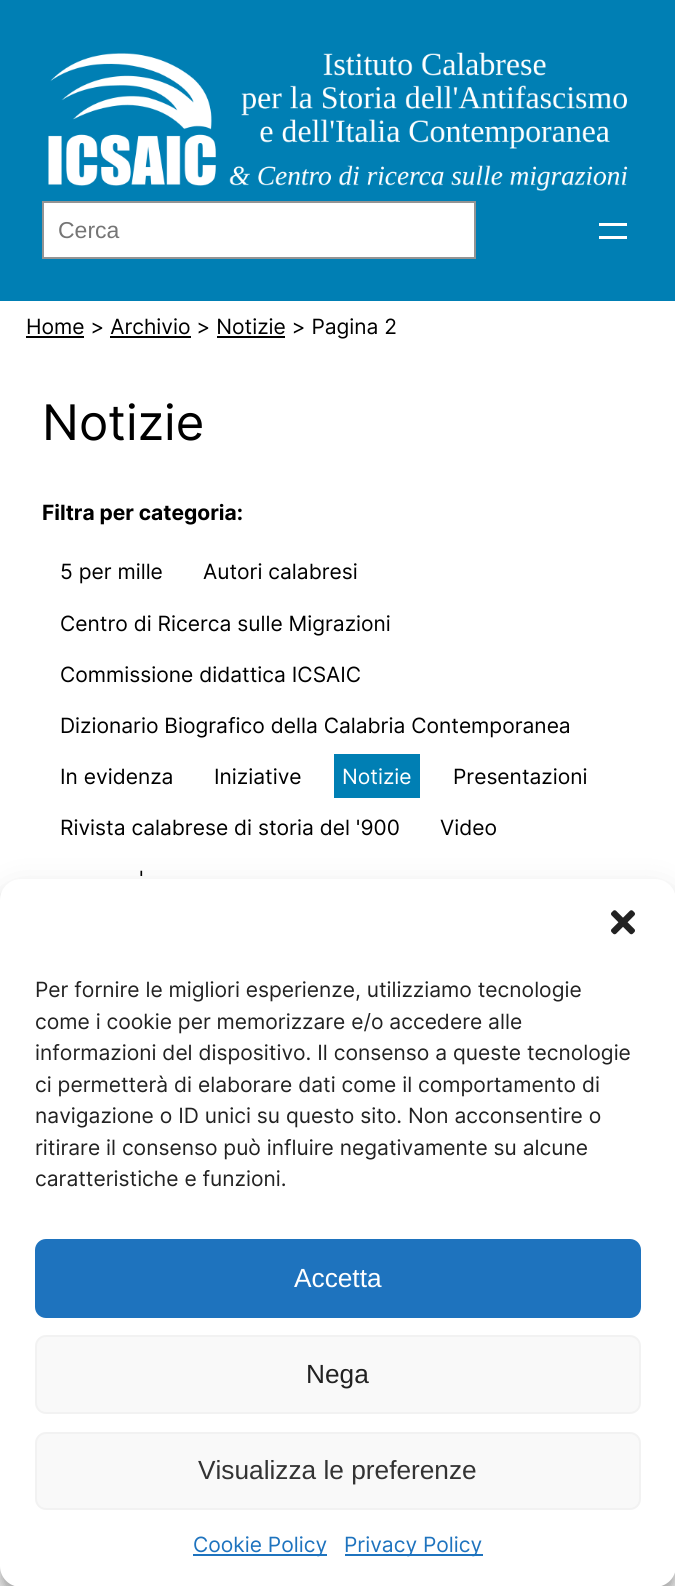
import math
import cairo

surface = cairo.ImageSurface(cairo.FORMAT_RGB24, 675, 1586)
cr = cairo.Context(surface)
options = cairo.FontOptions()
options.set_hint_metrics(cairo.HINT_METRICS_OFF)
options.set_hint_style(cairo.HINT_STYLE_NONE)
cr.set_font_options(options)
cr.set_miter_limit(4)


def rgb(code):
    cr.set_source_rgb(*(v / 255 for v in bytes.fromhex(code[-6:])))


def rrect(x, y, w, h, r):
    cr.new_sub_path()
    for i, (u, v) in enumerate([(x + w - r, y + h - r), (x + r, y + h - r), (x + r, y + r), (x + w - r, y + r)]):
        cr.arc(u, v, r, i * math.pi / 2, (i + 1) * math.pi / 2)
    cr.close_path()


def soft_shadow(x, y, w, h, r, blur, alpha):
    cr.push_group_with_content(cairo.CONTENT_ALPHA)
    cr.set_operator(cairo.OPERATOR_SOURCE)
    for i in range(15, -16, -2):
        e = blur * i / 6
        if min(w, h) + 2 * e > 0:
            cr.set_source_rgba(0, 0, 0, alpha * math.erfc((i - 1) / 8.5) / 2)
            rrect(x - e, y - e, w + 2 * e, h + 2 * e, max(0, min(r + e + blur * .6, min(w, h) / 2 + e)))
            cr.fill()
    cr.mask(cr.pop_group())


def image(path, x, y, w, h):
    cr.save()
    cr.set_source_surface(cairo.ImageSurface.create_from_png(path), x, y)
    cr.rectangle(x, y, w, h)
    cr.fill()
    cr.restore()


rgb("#ffffff")
cr.paint()
rgb("#007fb4")
cr.rectangle(0, 0, 675, 301)
cr.fill()
image("img/1.png", 48, 52, 580, 139)
rgb("#ffffff")
cr.rectangle(43, 202, 432, 56)
cr.fill_preserve()
rgb("#949494")
cr.stroke()
for x, y, w, h, color in [
    (599, 223, 28, 3, "#ffffff"),
    (599, 236, 28, 3, "#ffffff"),
    (26, 336, 58, 2, "#000000"),
    (110, 336, 81, 2, "#000000"),
    (217, 336, 68, 2, "#000000"),
    (334, 754, 86, 44, "#007fb4"),
]:
    rgb(color)
    cr.rectangle(x, y, w, h)
    cr.fill()
rgb("#000000")
soft_shadow(0, 889, 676, 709, 21, 5, 0.23)
soft_shadow(0, 896, 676, 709, 21, 17.5, 0.19)
rgb("#ffffff")
rrect(0, 879, 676, 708, 21)
cr.fill()
image("img/2.png", 611, 910, 24, 25)
rgb("#1e73be")
rrect(36, 1240, 604, 77, 10)
cr.fill_preserve()
cr.stroke()
rgb("#f9f9f9")
rrect(36, 1336, 604, 77, 10)
cr.fill_preserve()
rgb("#f2f2f2")
cr.stroke()
rgb("#f9f9f9")
rrect(36, 1433, 604, 76, 10)
cr.fill_preserve()
rgb("#f2f2f2")
cr.stroke()
rgb("#1e73be")
cr.rectangle(193, 1554, 134, 2)
cr.fill()
cr.rectangle(345, 1554, 138, 2)
cr.fill()
cr.select_font_face("Liberation Sans")
cr.set_font_size(23)
rgb("#757575")
cr.move_to(58, 238)
cr.show_text("Cerca")
cr.select_font_face("Inter")
cr.set_font_size(21)
rgb("#000000")
cr.move_to(26, 334)
cr.show_text("Home > Archivio > Notizie > Pagina 2")
cr.set_font_size(49)
cr.move_to(42, 440)
cr.show_text("Notizie")
cr.select_font_face("Inter", cairo.FONT_SLANT_NORMAL, cairo.FONT_WEIGHT_BOLD)
cr.set_font_size(21)
cr.move_to(42, 520)
cr.show_text("Filtra per categoria:")
cr.select_font_face("Inter")
for x, y, s in [
    (60, 579, "5 per mille"),
    (203, 579, "Autori calabresi"),
    (60, 631, "Centro di Ricerca sulle Migrazioni"),
    (60, 682, "Commissione didattica ICSAIC"),
    (60, 733, "Dizionario Biografico della Calabria Contemporanea"),
    (60, 784, "In evidenza"),
    (214, 784, "Iniziative"),
]:
    cr.move_to(x, y)
    cr.show_text(s)
rgb("#ffffff")
cr.move_to(342, 784)
cr.show_text("Notizie")
rgb("#000000")
for x, y, s in [
    (453, 784, "Presentazioni"),
    (60, 835, "Rivista calabrese di storia del '900"),
    (440, 835, "Video"),
    (139, 886, "'"),
]:
    cr.move_to(x, y)
    cr.show_text(s)
rgb("#222222")
for x, y, s in [
    (35, 997, "Per fornire le migliori esperienze, utilizziamo tecnologie"),
    (35, 1029, "come i cookie per memorizzare e/o accedere alle"),
    (35, 1060, "informazioni del dispositivo. Il consenso a queste tecnologie"),
    (35, 1092, "ci permetterà di elaborare dati come il comportamento di"),
    (35, 1123, "navigazione o ID unici su questo sito. Non acconsentire o"),
    (35, 1155, "ritirare il consenso può influire negativamente su alcune"),
    (35, 1186, "caratteristiche e funzioni."),
]:
    cr.move_to(x, y)
    cr.show_text(s)
cr.select_font_face("Liberation Sans")
cr.set_font_size(26.25)
rgb("#ffffff")
cr.move_to(294, 1287)
cr.show_text("Accetta")
rgb("#222222")
cr.move_to(306, 1383)
cr.show_text("Nega")
rgb("#333333")
cr.move_to(198, 1479)
cr.show_text("Visualizza le preferenze")
cr.select_font_face("Inter")
cr.set_font_size(21)
rgb("#1e73be")
cr.move_to(193, 1552)
cr.show_text("Cookie Policy")
cr.move_to(344, 1552)
cr.show_text("Privacy Policy")
surface.write_to_png("page.png")
